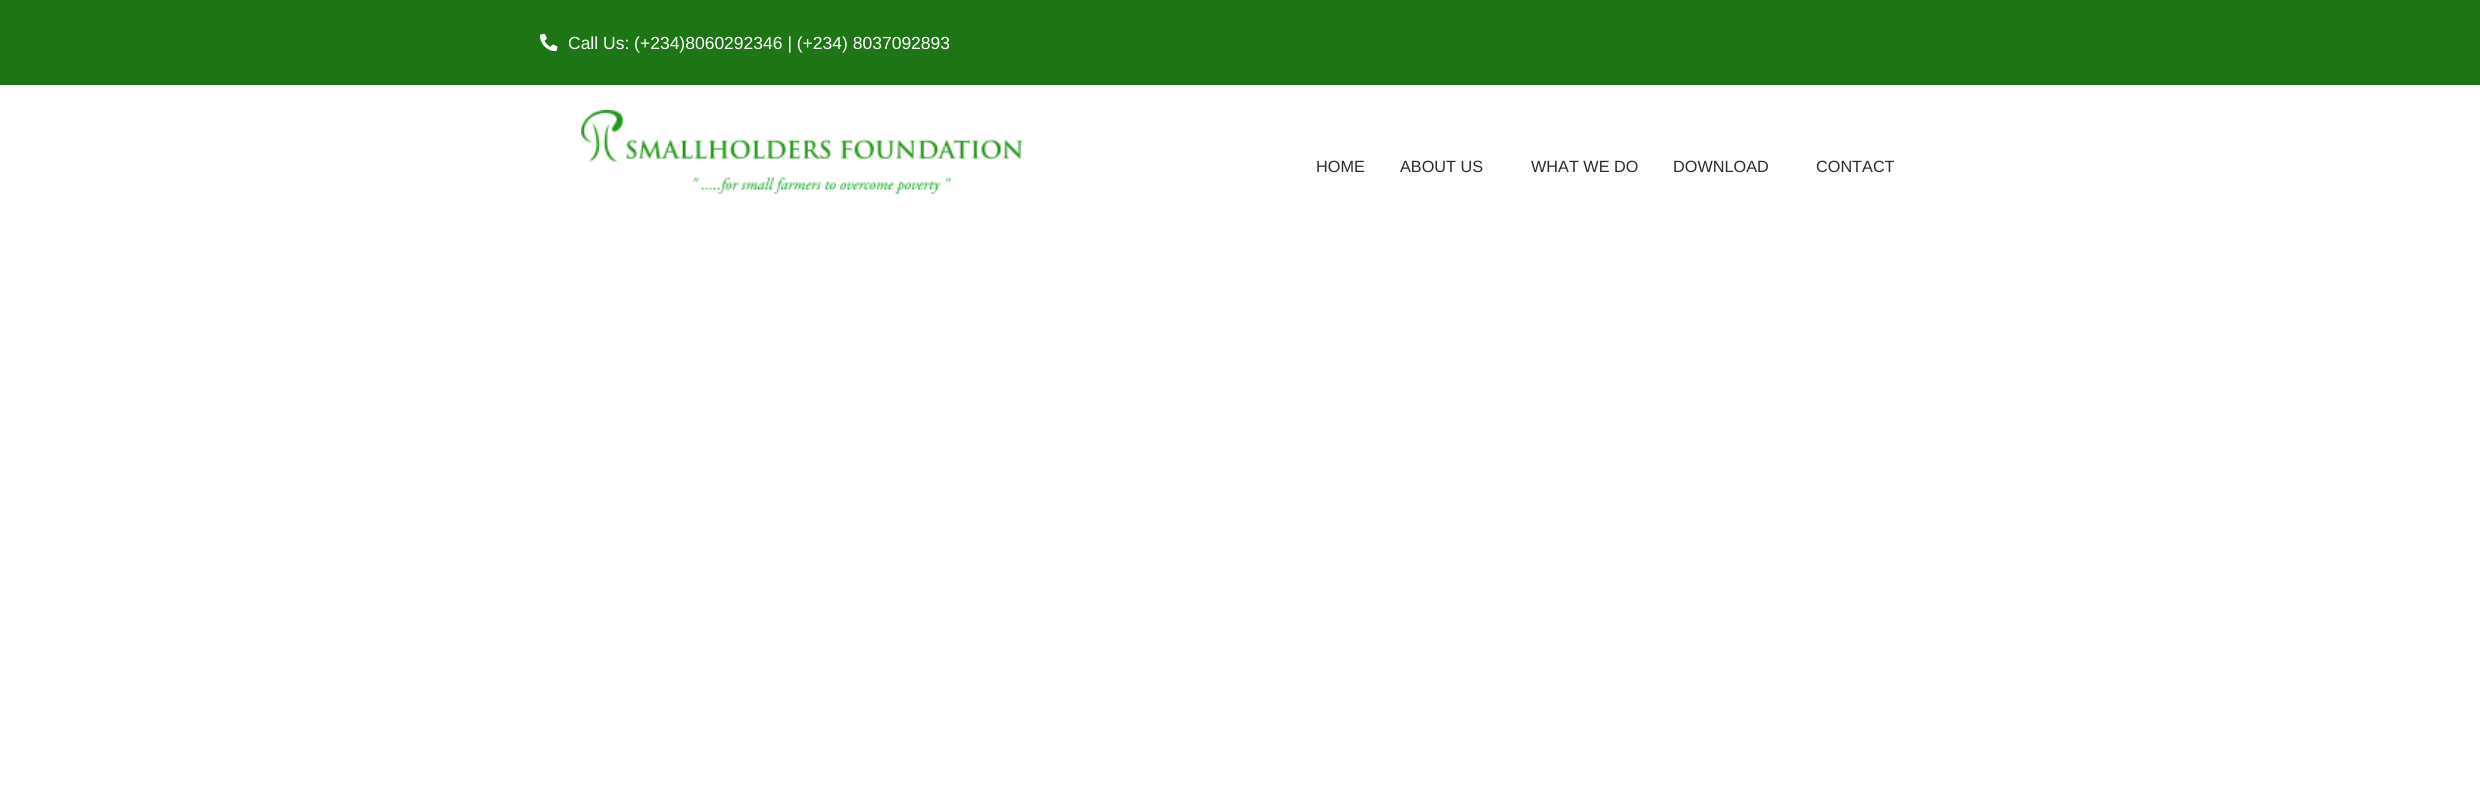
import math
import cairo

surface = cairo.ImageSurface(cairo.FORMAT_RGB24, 2480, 796)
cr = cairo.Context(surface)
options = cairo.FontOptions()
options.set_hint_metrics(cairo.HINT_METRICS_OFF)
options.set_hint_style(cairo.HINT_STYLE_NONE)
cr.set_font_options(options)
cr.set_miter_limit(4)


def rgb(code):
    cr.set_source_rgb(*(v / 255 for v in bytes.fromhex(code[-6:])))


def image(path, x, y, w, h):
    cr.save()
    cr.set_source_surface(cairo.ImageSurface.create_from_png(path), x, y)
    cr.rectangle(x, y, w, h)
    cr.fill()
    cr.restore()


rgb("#ffffff")
cr.paint()
rgb("#1e7516")
cr.rectangle(0, 0, 2480, 85)
cr.fill()
image("img/1.png", 540, 34, 18, 17)
image("img/2.png", 581, 110, 442, 84)
cr.select_font_face("Liberation Sans")
cr.set_font_size(17.5)
rgb("#ffffff")
cr.move_to(568, 49)
cr.show_text("Call Us: (+234)8060292346 | (+234) 8037092893")
cr.set_font_size(16.25)
rgb("#2b2b2b")
for x, y, s in [
    (1316, 172, "HOME"),
    (1400, 172, "ABOUT US"),
    (1531, 172, "WHAT WE DO"),
    (1673, 172, "DOWNLOAD"),
    (1816, 172, "CONTACT"),
]:
    cr.move_to(x, y)
    cr.show_text(s)
surface.write_to_png("page.png")
